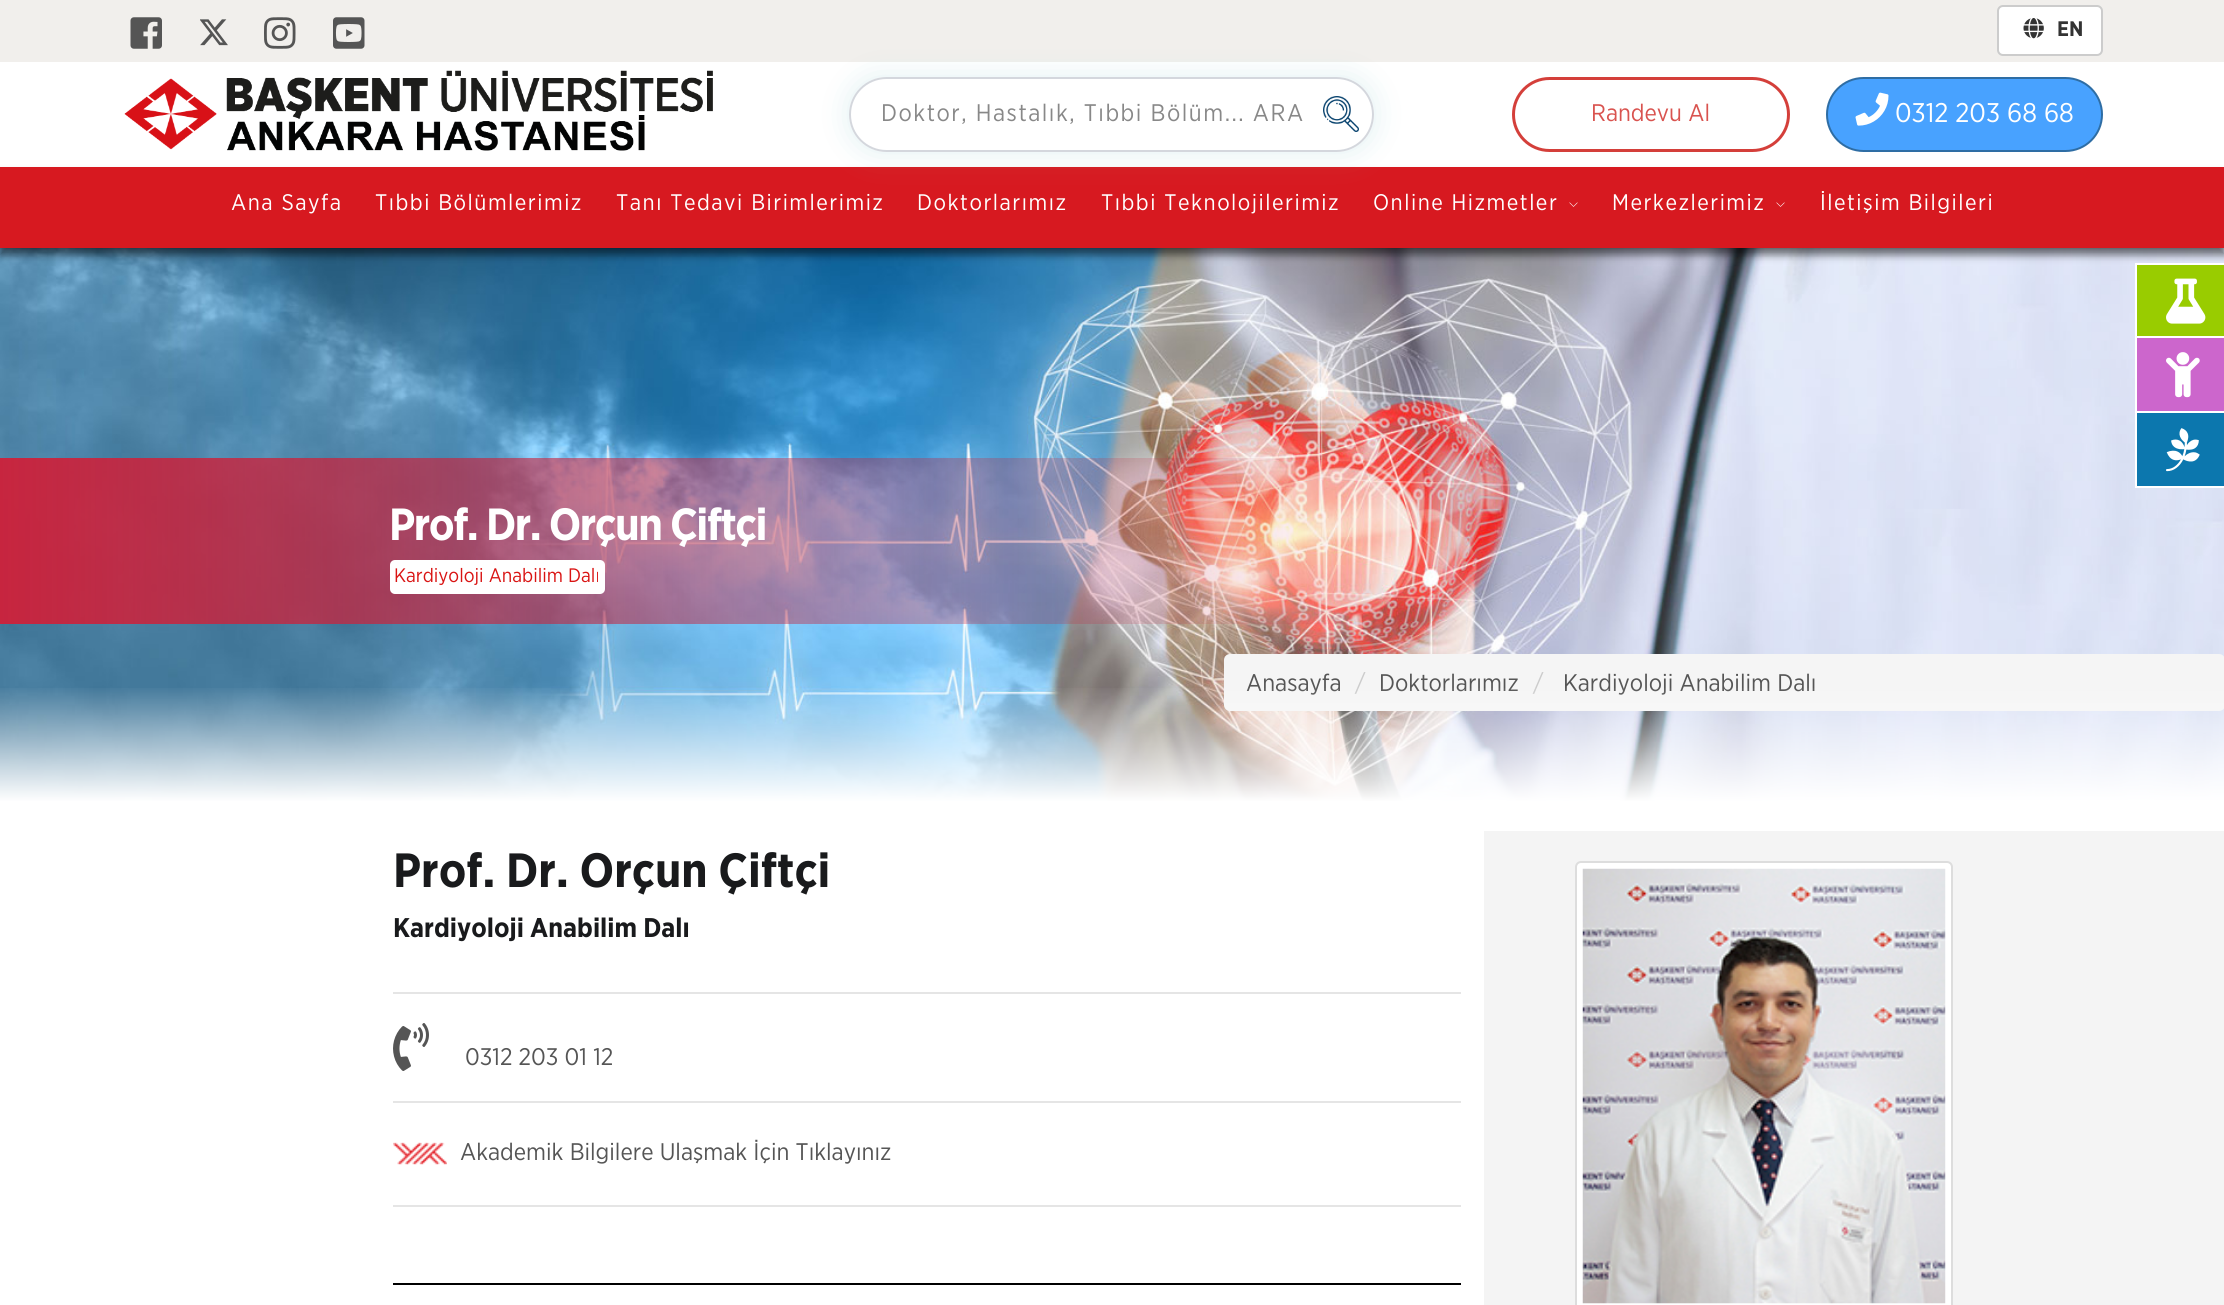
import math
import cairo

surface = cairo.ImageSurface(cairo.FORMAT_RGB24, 2224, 1305)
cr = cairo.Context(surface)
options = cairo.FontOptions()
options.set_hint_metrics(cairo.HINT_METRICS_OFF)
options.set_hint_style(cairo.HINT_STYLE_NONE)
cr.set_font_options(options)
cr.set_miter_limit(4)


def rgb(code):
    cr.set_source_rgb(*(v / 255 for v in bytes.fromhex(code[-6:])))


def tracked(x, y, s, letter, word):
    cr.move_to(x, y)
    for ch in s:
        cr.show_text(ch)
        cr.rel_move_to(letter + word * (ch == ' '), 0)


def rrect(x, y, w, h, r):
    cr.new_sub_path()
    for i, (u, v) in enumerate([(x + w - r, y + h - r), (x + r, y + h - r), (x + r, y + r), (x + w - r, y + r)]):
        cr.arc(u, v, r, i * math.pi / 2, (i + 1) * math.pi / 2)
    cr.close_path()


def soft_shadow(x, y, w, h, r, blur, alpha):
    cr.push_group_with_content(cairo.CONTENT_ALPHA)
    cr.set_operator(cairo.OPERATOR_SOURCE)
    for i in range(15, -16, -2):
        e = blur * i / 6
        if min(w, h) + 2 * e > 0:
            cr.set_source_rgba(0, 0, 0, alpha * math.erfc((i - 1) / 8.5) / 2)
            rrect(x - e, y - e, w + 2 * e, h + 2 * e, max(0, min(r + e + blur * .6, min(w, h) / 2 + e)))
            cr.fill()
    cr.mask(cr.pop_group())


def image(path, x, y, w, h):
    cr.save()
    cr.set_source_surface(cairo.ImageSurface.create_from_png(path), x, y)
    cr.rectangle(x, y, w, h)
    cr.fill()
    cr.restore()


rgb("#f4f4f4")
cr.paint()
image("img/13.png", 0, 248, 2224, 553)
rgb("#000000")
soft_shadow(-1, -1, 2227, 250, 0, 1, 0.1)
rgb("#d71920")
cr.rectangle(0, 167, 2224, 81)
cr.fill()
rgb("#f1efec")
cr.rectangle(0, 0, 2224, 62)
cr.fill()
image("img/1.png", 130, 17, 32, 32)
image("img/2.png", 200, 19, 28, 27)
image("img/3.png", 264, 17, 32, 32)
image("img/4.png", 333, 17, 32, 32)
rgb("#ffffff")
rrect(1998, 6, 104, 49, 5)
cr.fill_preserve()
rgb("#cccccc")
cr.stroke()
image("img/5.png", 2023, 18, 21, 21)
rgb("#ffffff")
cr.rectangle(0, 62, 2224, 105)
cr.fill()
image("img/6.png", 124, 70, 589, 81)
rgb("#89c5cc")
soft_shadow(849, 77, 525, 75, 37.5, 15, 0.25)
rgb("#ffffff")
rrect(849, 77, 525, 75, 37.5)
cr.fill()
image("img/7.png", 1323, 96, 36, 36)
rrect(850, 78, 523, 73, 36.5)
rgb("#d4d7dd")
cr.stroke()
rrect(1513.5, 78.5, 275, 72, 36)
rgb("#d43f3a")
cr.set_line_width(3)
cr.stroke()
rgb("#48a2ff")
rrect(1827, 78, 275, 73, 36.5)
cr.fill_preserve()
rgb("#2e6da4")
cr.set_line_width(2)
cr.stroke()
image("img/8.png", 1855, 92, 34, 34)
cr.save()
cr.set_fill_rule(cairo.FILL_RULE_EVEN_ODD)
cr.new_path()
cr.move_to(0, 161)
cr.line_to(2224, 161)
cr.line_to(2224, 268)
cr.line_to(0, 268)
cr.close_path()
cr.move_to(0, 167)
cr.line_to(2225, 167)
cr.line_to(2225, 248)
cr.line_to(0, 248)
cr.close_path()
cr.clip()
rgb("#000000")
soft_shadow(0, 174, 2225, 81, 0, 4, 0.53)
cr.restore()
image("img/9.png", 1569, 202, 9, 5)
image("img/9.png", 1776, 202, 9, 5)
for x, y, w, h, color in [
    (2137, 265, 87, 71, "#99cc00"),
    (2135, 263, 89, 2, "#ffffff"),
    (2135, 336, 89, 2, "#ffffff"),
    (2135, 263, 2, 75, "#ffffff"),
]:
    rgb(color)
    cr.rectangle(x, y, w, h)
    cr.fill()
image("img/10.png", 2166, 278, 40, 46)
for x, y, w, h, color in [
    (2137, 338, 87, 73, "#cc66cc"),
    (2135, 411, 89, 2, "#ffffff"),
    (2135, 338, 2, 75, "#ffffff"),
]:
    rgb(color)
    cr.rectangle(x, y, w, h)
    cr.fill()
image("img/11.png", 2166, 352, 34, 46)
for x, y, w, h, color in [
    (2137, 413, 87, 73, "#0c77ae"),
    (2135, 486, 89, 2, "#ffffff"),
    (2135, 413, 2, 75, "#ffffff"),
]:
    rgb(color)
    cr.rectangle(x, y, w, h)
    cr.fill()
image("img/12.png", 2166, 428, 34, 44)
rrect(390, 560, 215, 34, 5)
cr.fill()
rgb("#f5f5f5")
rrect(1224, 654, 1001, 57, 6)
cr.fill()
rgb("#ffffff")
cr.rectangle(0, 831, 1484, 474)
cr.fill()
rgb("#e5e5e5")
cr.rectangle(393, 992, 1068, 2)
cr.fill()
image("img/14.png", 393, 1023, 36, 48)
cr.rectangle(393, 1101, 1068, 2)
cr.fill()
image("img/15.png", 393, 1142, 54, 23)
cr.rectangle(393, 1205, 1068, 2)
cr.fill()
rgb("#000000")
cr.rectangle(393, 1283, 1068, 2)
cr.fill()
rgb("#ffffff")
rrect(1576, 862, 376, 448, 5)
cr.fill_preserve()
rgb("#dddddd")
cr.stroke()
image("img/16.png", 1582, 868, 364, 436)
cr.select_font_face("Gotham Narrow", cairo.FONT_SLANT_NORMAL, cairo.FONT_WEIGHT_BOLD)
cr.set_font_size(21)
rgb("#333333")
cr.move_to(2057, 36)
cr.show_text("EN")
cr.select_font_face("Gotham Narrow")
cr.set_font_size(24)
rgb("#888888")
tracked(881, 121, "Doktor, Hastalık, Tıbbi Bölüm... ARA", 1.5, 0)
rgb("#d9534f")
cr.move_to(1591, 121)
cr.show_text("Randevu Al")
cr.set_font_size(27)
rgb("#ffffff")
cr.move_to(1895, 122)
cr.show_text("0312 203 68 68")
cr.set_font_size(22.5)
for x, y, s in [
    (231, 210, "Ana Sayfa"),
    (375, 210, "Tıbbi Bölümlerimiz"),
    (616, 210, "Tanı Tedavi Birimlerimiz"),
    (917, 210, "Doktorlarımız"),
    (1101, 210, "Tıbbi Teknolojilerimiz"),
    (1373, 210, "Online Hizmetler"),
    (1612, 210, "Merkezlerimiz"),
    (1820, 210, "İletişim Bilgileri"),
]:
    tracked(x, y, s, 1.5, 0)
cr.select_font_face("Gotham Narrow", cairo.FONT_SLANT_NORMAL, cairo.FONT_WEIGHT_BOLD)
cr.set_font_size(45)
tracked(389, 540, "Prof. Dr. Orçun Çiftçi", -1.5, 0)
cr.select_font_face("Gotham Narrow")
cr.set_font_size(19.5)
rgb("#d91413")
cr.move_to(394, 582)
cr.show_text("Kardiyoloji Anabilim Dalı")
cr.set_font_size(24)
rgb("#555555")
cr.move_to(1246, 691)
cr.show_text("Anasayfa")
rgb("#cccccc")
cr.move_to(1355, 691)
cr.show_text("/")
rgb("#555555")
cr.move_to(1379, 691)
cr.show_text("Doktorlarımız")
rgb("#cccccc")
cr.move_to(1533, 691)
cr.show_text("/")
rgb("#555555")
cr.move_to(1563, 691)
cr.show_text("Kardiyoloji Anabilim Dalı")
gradient = cairo.LinearGradient(1112, 685, 1112, 831)
gradient.add_color_stop_rgba(0, 1, 1, 1, 0)
gradient.add_color_stop_rgba(0.8, 1, 1, 1, 1)
cr.set_source(gradient)
cr.rectangle(0, 688, 2224, 143)
cr.fill()
cr.select_font_face("Gotham Narrow", cairo.FONT_SLANT_NORMAL, cairo.FONT_WEIGHT_BOLD)
cr.set_font_size(48)
rgb("#191a1c")
cr.move_to(393, 887)
cr.show_text("Prof. Dr. Orçun Çiftçi")
cr.set_font_size(27)
cr.move_to(393, 937)
cr.show_text("Kardiyoloji Anabilim Dalı")
cr.select_font_face("Gotham Narrow")
cr.set_font_size(24)
rgb("#555555")
cr.move_to(465, 1065)
cr.show_text("0312 203 01 12")
cr.move_to(460, 1160)
cr.show_text("Akademik Bilgilere Ulaşmak İçin Tıklayınız")
surface.write_to_png("page.png")
